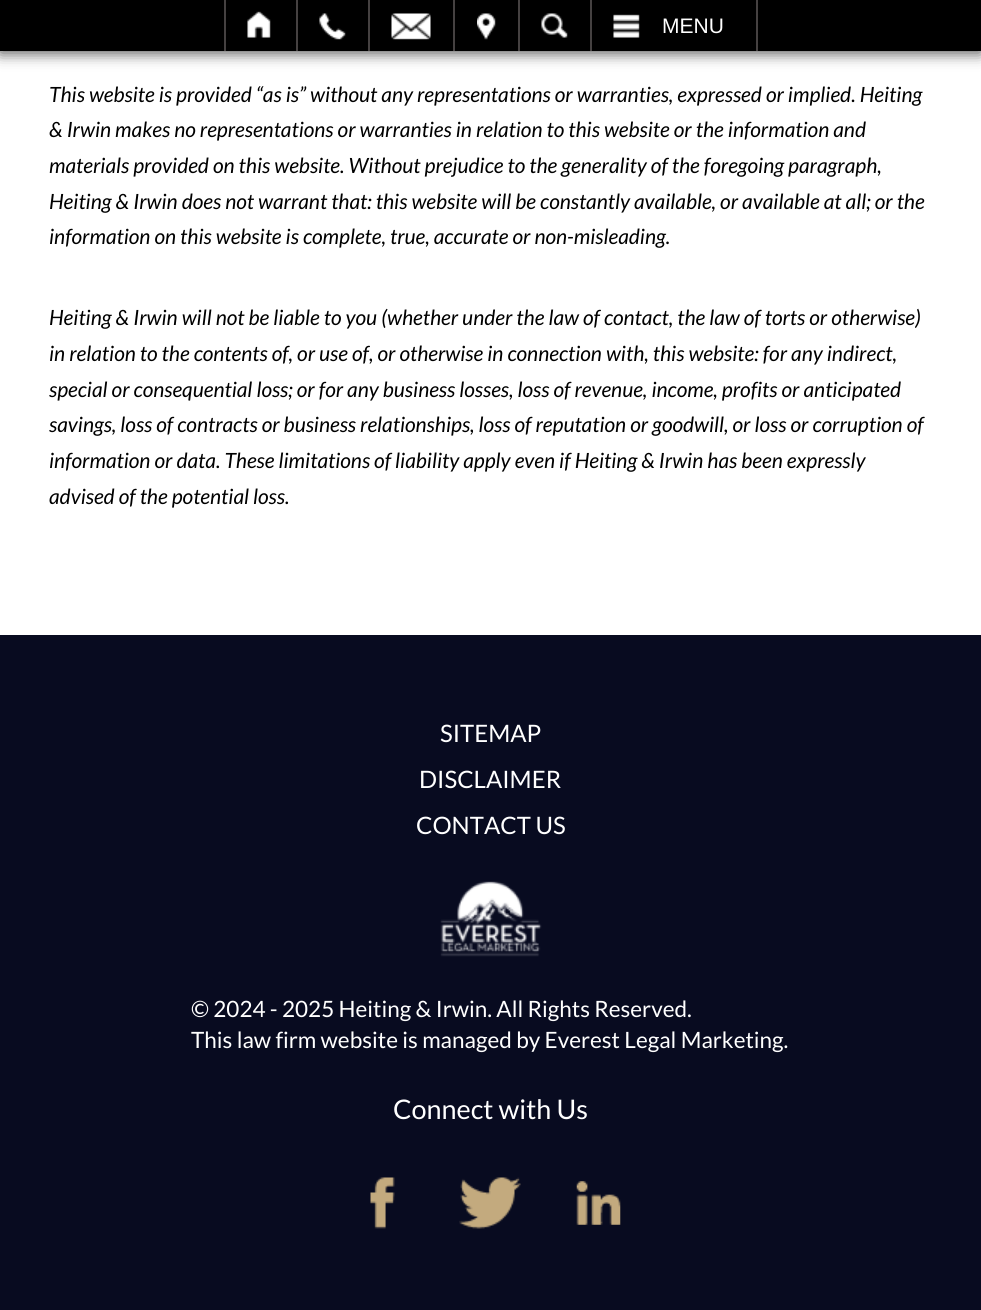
import math
import cairo

surface = cairo.ImageSurface(cairo.FORMAT_RGB24, 981, 1310)
cr = cairo.Context(surface)
options = cairo.FontOptions()
options.set_hint_metrics(cairo.HINT_METRICS_OFF)
options.set_hint_style(cairo.HINT_STYLE_NONE)
cr.set_font_options(options)
cr.set_miter_limit(4)


def rgb(code):
    cr.set_source_rgb(*(v / 255 for v in bytes.fromhex(code[-6:])))


def rrect(x, y, w, h, r):
    cr.new_sub_path()
    for i, (u, v) in enumerate([(x + w - r, y + h - r), (x + r, y + h - r), (x + r, y + r), (x + w - r, y + r)]):
        cr.arc(u, v, r, i * math.pi / 2, (i + 1) * math.pi / 2)
    cr.close_path()


def soft_shadow(x, y, w, h, r, blur, alpha):
    cr.push_group_with_content(cairo.CONTENT_ALPHA)
    cr.set_operator(cairo.OPERATOR_SOURCE)
    for i in range(15, -16, -2):
        e = blur * i / 6
        if min(w, h) + 2 * e > 0:
            cr.set_source_rgba(0, 0, 0, alpha * math.erfc((i - 1) / 8.5) / 2)
            rrect(x - e, y - e, w + 2 * e, h + 2 * e, max(0, min(r + e + blur * .6, min(w, h) / 2 + e)))
            cr.fill()
    cr.mask(cr.pop_group())


def image(path, x, y, w, h):
    cr.save()
    cr.set_source_surface(cairo.ImageSurface.create_from_png(path), x, y)
    cr.rectangle(x, y, w, h)
    cr.fill()
    cr.restore()


rgb("#ffffff")
cr.paint()
rgb("#000000")
soft_shadow(0, 2, 981, 51, 0, 7.5, 0.7)
for x, y, w, h, color in [
    (0, 0, 981, 51, "#000000"),
    (296, 0, 2, 51, "#454141"),
    (224, 0, 2, 51, "#454141"),
]:
    rgb(color)
    cr.rectangle(x, y, w, h)
    cr.fill()
image("img/1.png", 247, 11, 24, 27)
cr.rectangle(368, 0, 2, 51)
cr.fill()
image("img/2.png", 319, 13, 27, 27)
cr.rectangle(453, 0, 2, 51)
cr.fill()
image("img/3.png", 391, 13, 40, 27)
cr.rectangle(518, 0, 2, 51)
cr.fill()
image("img/4.png", 477, 13, 19, 27)
cr.rectangle(590, 0, 2, 51)
cr.fill()
image("img/5.png", 541, 13, 27, 25)
cr.rectangle(756, 0, 2, 51)
cr.fill()
image("img/6.png", 613, 14, 27, 24)
rgb("#080b20")
cr.rectangle(0, 635, 981, 675)
cr.fill()
image("img/7.png", 440, 881, 102, 76)
image("img/8.png", 370, 1177, 25, 52)
image("img/9.png", 459, 1177, 62, 52)
image("img/10.png", 576, 1181, 45, 44)
cr.select_font_face("Liberation Sans")
cr.set_font_size(21)
rgb("#ffffff")
cr.move_to(662, 33)
cr.show_text("MENU")
cr.select_font_face("Lato", cairo.FONT_SLANT_ITALIC)
rgb("#000000")
for x, y, s in [
    (49, 102, "This website is provided “as is” without any representations or warranties, expressed or implied. Heiting"),
    (49, 137, "& Irwin makes no representations or warranties in relation to this website or the information and"),
    (49, 173, "materials provided on this website. Without prejudice to the generality of the foregoing paragraph,"),
    (49, 209, "Heiting & Irwin does not warrant that: this website will be constantly available, or available at all; or the"),
    (49, 244, "information on this website is complete, true, accurate or non-misleading."),
    (49, 325, "Heiting & Irwin will not be liable to you (whether under the law of contact, the law of torts or otherwise)"),
    (49, 361, "in relation to the contents of, or use of, or otherwise in connection with, this website: for any indirect,"),
    (49, 397, "special or consequential loss; or for any business losses, loss of revenue, income, profits or anticipated"),
    (49, 432, "savings, loss of contracts or business relationships, loss of reputation or goodwill, or loss or corruption of"),
    (49, 468, "information or data. These limitations of liability apply even if Heiting & Irwin has been expressly"),
    (49, 504, "advised of the potential loss."),
]:
    cr.move_to(x, y)
    cr.show_text(s)
cr.select_font_face("Lato")
cr.set_font_size(24)
rgb("#ffffff")
for x, y, s in [
    (440, 742, "SITEMAP"),
    (419, 788, "DISCLAIMER"),
    (416, 834, "CONTACT US"),
]:
    cr.move_to(x, y)
    cr.show_text(s)
cr.set_font_size(22.5)
cr.move_to(191, 1017)
cr.show_text("© 2024 - 2025 Heiting & Irwin. All Rights Reserved.")
cr.move_to(191, 1048)
cr.show_text("This law firm website is managed by Everest Legal Marketing.")
cr.set_font_size(27)
cr.move_to(393, 1119)
cr.show_text("Connect with Us")
surface.write_to_png("page.png")
